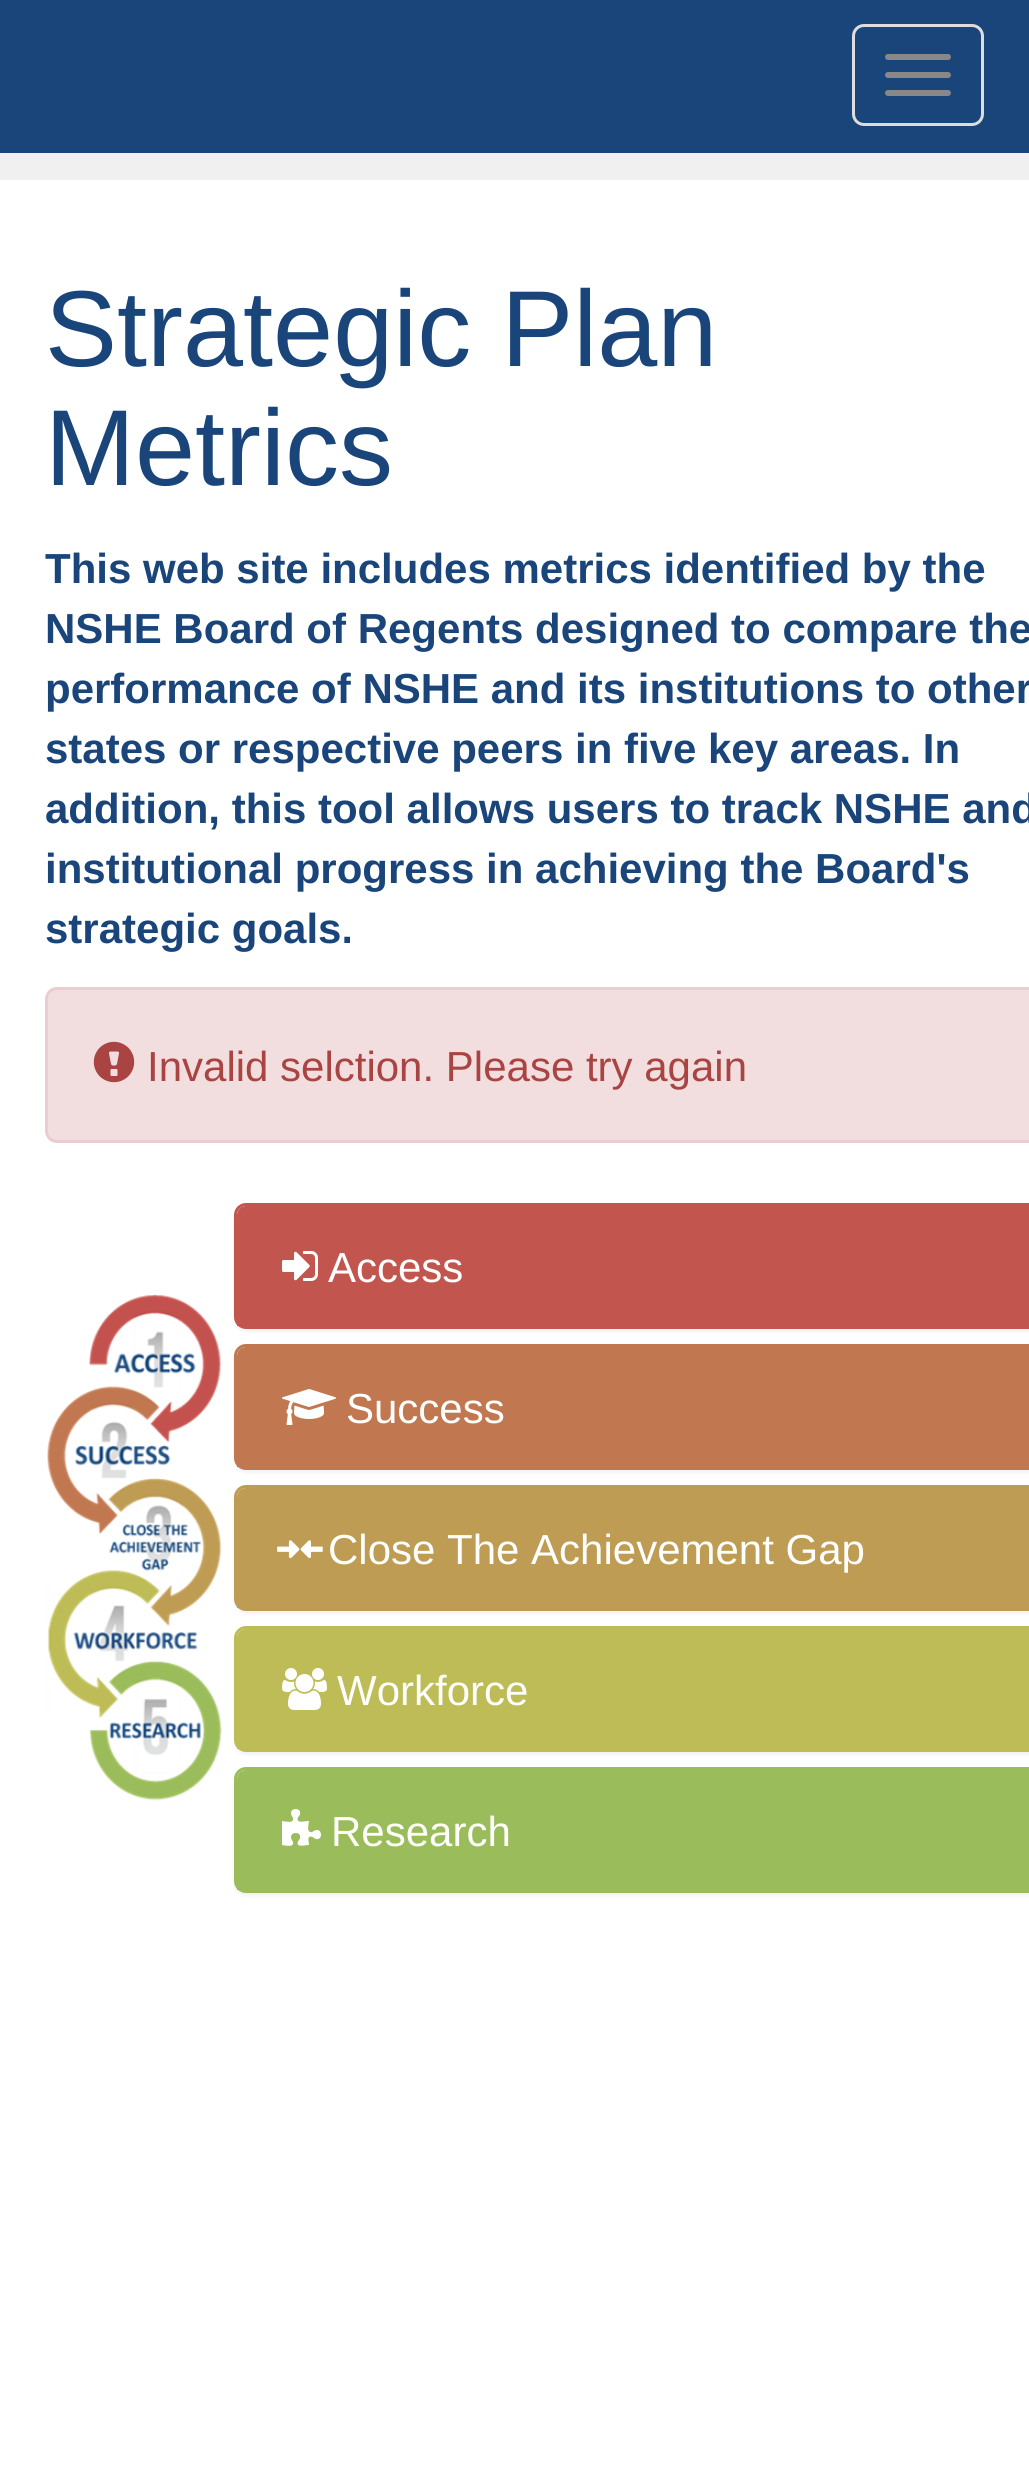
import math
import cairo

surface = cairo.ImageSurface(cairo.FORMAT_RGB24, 1029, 2470)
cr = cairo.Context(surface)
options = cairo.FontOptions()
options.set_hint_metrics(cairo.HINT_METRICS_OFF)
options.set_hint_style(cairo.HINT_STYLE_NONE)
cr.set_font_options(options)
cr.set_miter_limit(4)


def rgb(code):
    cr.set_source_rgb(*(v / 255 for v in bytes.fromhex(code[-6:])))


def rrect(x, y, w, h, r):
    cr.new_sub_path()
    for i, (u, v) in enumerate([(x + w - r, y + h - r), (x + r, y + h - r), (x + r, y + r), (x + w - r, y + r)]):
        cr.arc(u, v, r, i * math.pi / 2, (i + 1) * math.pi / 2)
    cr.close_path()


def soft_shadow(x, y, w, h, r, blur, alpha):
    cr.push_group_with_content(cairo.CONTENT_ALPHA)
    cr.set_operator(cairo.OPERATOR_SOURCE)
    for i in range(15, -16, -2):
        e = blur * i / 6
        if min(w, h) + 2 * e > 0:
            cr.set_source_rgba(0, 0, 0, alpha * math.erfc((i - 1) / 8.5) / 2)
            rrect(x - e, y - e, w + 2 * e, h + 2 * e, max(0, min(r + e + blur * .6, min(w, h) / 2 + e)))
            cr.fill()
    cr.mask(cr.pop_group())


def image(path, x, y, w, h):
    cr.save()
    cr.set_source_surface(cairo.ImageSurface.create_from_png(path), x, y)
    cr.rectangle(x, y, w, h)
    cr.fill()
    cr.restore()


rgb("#ffffff")
cr.paint()
rgb("#19457a")
cr.rectangle(0, 0, 1029, 153)
cr.fill()
rrect(853.5, 25.5, 129, 99, 10.5)
rgb("#dddddd")
cr.set_line_width(3)
cr.stroke()
rgb("#888888")
rrect(885, 54, 66, 6, 3)
cr.fill()
rrect(885, 72, 66, 6, 3)
cr.fill()
rrect(885, 90, 66, 6, 3)
cr.fill()
rgb("#f0f0f0")
cr.rectangle(0, 153, 1029, 27)
cr.fill()
rgb("#f2dede")
rrect(46.5, 988.5, 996, 153, 10.5)
cr.fill_preserve()
rgb("#ebccd1")
cr.stroke()
image("img/1.png", 93, 1041, 42, 42)
image("img/2.png", 47, 1294, 175, 507)
rgb("#000000")
soft_shadow(234, 1206, 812, 126, 12, 1.5, 0.05)
rrect(235.5, 1204.5, 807, 123, 10.5)
rgb("#c3554f")
cr.stroke()
cr.new_path()
cr.move_to(246, 1206)
cr.line_to(1029, 1206)
cr.curve_to(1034, 1206, 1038, 1210, 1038, 1215)
cr.line_to(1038, 1326)
cr.line_to(237, 1326)
cr.line_to(237, 1215)
cr.curve_to(237, 1210, 241, 1206, 246, 1206)
cr.close_path()
cr.fill()
image("img/3.png", 282, 1251, 36, 30)
rgb("#000000")
soft_shadow(234, 1347, 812, 126, 12, 1.5, 0.05)
rrect(235.5, 1345.5, 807, 123, 10.5)
rgb("#c17850")
cr.stroke()
cr.new_path()
cr.move_to(246, 1347)
cr.line_to(1029, 1347)
cr.curve_to(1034, 1347, 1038, 1351, 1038, 1356)
cr.line_to(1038, 1467)
cr.line_to(237, 1467)
cr.line_to(237, 1356)
cr.curve_to(237, 1351, 241, 1347, 246, 1347)
cr.close_path()
cr.fill()
image("img/4.png", 282, 1389, 54, 36)
rgb("#000000")
soft_shadow(234, 1488, 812, 126, 12, 1.5, 0.05)
rrect(235.5, 1486.5, 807, 123, 10.5)
rgb("#bf9c53")
cr.stroke()
cr.new_path()
cr.move_to(246, 1488)
cr.line_to(1029, 1488)
cr.curve_to(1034, 1488, 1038, 1492, 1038, 1497)
cr.line_to(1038, 1608)
cr.line_to(237, 1608)
cr.line_to(237, 1497)
cr.curve_to(237, 1492, 241, 1488, 246, 1488)
cr.close_path()
cr.fill()
image("img/5.png", 277, 1540, 46, 19)
rgb("#000000")
soft_shadow(234, 1629, 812, 126, 12, 1.5, 0.05)
rrect(235.5, 1627.5, 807, 123, 10.5)
rgb("#bdbc56")
cr.stroke()
cr.new_path()
cr.move_to(246, 1629)
cr.line_to(1029, 1629)
cr.curve_to(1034, 1629, 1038, 1633, 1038, 1638)
cr.line_to(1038, 1749)
cr.line_to(237, 1749)
cr.line_to(237, 1638)
cr.curve_to(237, 1633, 241, 1629, 246, 1629)
cr.close_path()
cr.fill()
image("img/6.png", 282, 1668, 45, 42)
rgb("#000000")
soft_shadow(234, 1770, 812, 126, 12, 1.5, 0.05)
rrect(235.5, 1768.5, 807, 123, 10.5)
rgb("#9bbc5a")
cr.stroke()
cr.new_path()
cr.move_to(246, 1770)
cr.line_to(1029, 1770)
cr.curve_to(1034, 1770, 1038, 1774, 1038, 1779)
cr.line_to(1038, 1890)
cr.line_to(237, 1890)
cr.line_to(237, 1779)
cr.curve_to(237, 1774, 241, 1770, 246, 1770)
cr.close_path()
cr.fill()
image("img/7.png", 282, 1809, 39, 37)
cr.select_font_face("Liberation Sans")
cr.set_font_size(108)
rgb("#19457a")
cr.move_to(45, 366)
cr.show_text("Strategic Plan")
cr.move_to(45, 485)
cr.show_text("Metrics")
cr.select_font_face("Liberation Sans", cairo.FONT_SLANT_NORMAL, cairo.FONT_WEIGHT_BOLD)
cr.set_font_size(42)
for x, y, s in [
    (45, 583, "This web site includes metrics identified by the"),
    (45, 643, "NSHE Board of Regents designed to compare the"),
    (45, 703, "performance of NSHE and its institutions to other"),
    (45, 763, "states or respective peers in five key areas. In"),
    (45, 823, "addition, this tool allows users to track NSHE and"),
    (45, 883, "institutional progress in achieving the Board's"),
    (45, 943, "strategic goals."),
]:
    cr.move_to(x, y)
    cr.show_text(s)
cr.select_font_face("Liberation Sans")
rgb("#a94442")
cr.move_to(147, 1081)
cr.show_text("Invalid selction. Please try again")
rgb("#ffffff")
for x, y, s in [
    (328, 1282, "Access"),
    (346, 1423, "Success"),
    (328, 1564, "Close The Achievement Gap"),
    (337, 1705, "Workforce"),
    (331, 1846, "Research"),
]:
    cr.move_to(x, y)
    cr.show_text(s)
surface.write_to_png("page.png")
